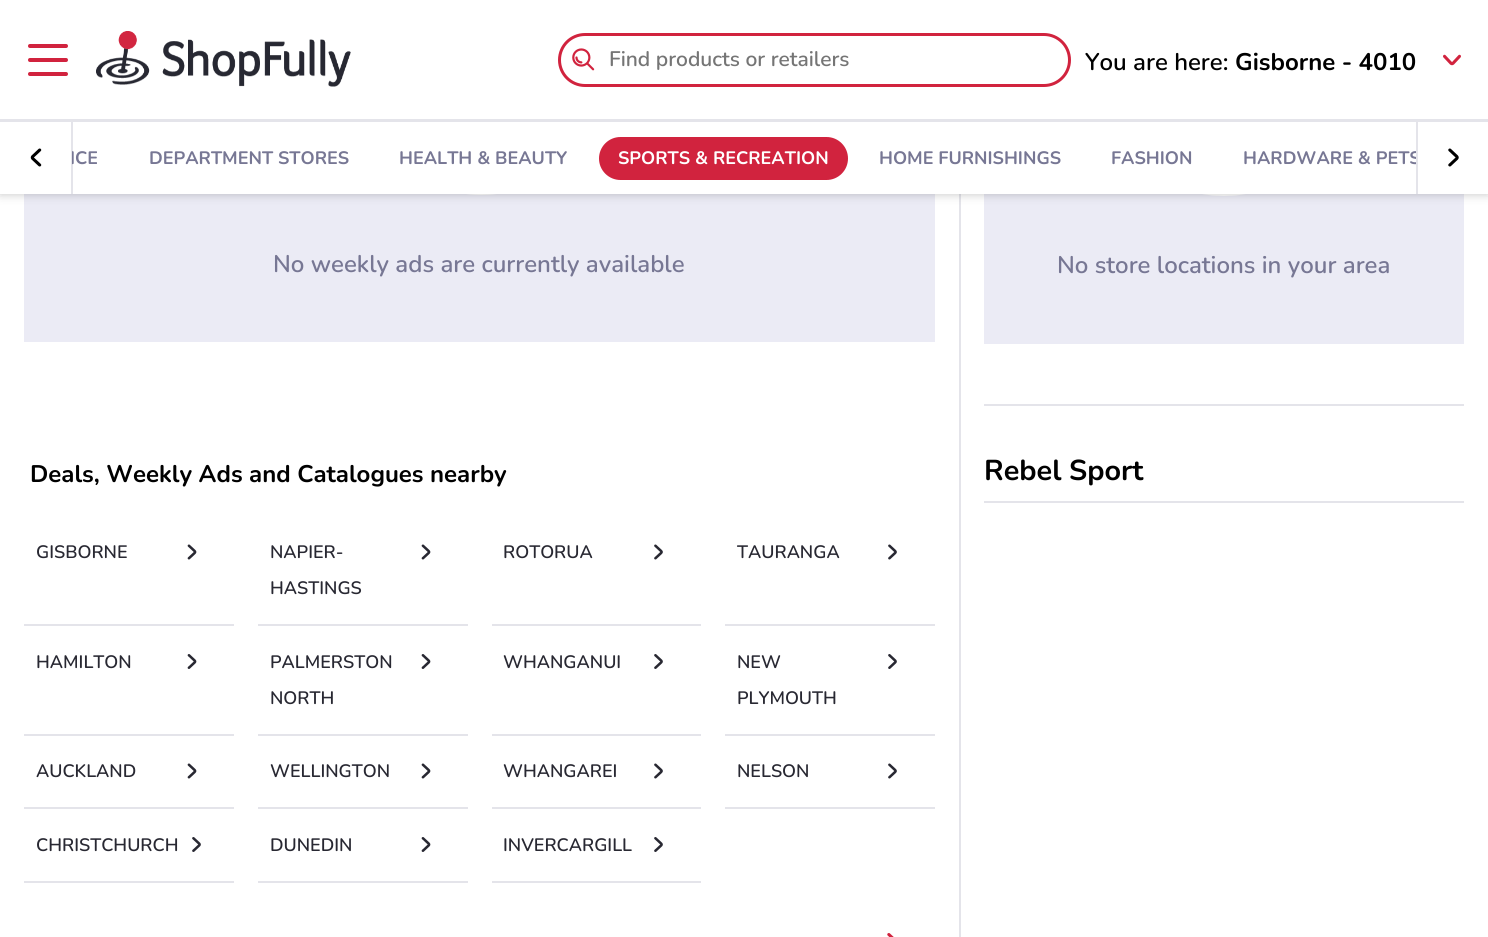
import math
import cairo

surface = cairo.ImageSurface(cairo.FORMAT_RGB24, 1488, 937)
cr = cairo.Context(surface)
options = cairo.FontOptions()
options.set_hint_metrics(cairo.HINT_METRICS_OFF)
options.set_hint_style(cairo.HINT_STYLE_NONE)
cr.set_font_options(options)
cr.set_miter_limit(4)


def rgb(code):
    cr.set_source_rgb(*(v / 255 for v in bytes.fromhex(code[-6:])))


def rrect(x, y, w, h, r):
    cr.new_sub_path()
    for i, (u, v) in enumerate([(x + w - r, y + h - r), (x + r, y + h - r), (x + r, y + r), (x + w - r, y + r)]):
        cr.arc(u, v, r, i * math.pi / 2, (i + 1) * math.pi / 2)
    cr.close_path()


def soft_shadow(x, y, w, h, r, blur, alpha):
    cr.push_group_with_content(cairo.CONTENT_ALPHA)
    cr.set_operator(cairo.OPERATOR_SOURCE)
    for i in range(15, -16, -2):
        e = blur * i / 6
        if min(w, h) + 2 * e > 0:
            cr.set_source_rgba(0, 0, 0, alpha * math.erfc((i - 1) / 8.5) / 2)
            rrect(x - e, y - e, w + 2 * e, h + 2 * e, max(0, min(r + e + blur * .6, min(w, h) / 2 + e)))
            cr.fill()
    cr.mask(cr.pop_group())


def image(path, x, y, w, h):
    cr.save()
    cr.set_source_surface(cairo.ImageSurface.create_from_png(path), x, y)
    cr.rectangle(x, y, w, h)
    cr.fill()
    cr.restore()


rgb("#ffffff")
cr.paint()
rgb("#e4e4ea")
cr.rectangle(959, 194, 2, 743)
cr.fill()
rgb("#ebebf5")
cr.rectangle(24, 194, 911, 148)
cr.fill()
image("img/7.png", 466, 194, 31, 1)
cr.rectangle(984, 194, 480, 150)
cr.fill()
image("img/13.png", 1202, 194, 44, 2)
rgb("#000000")
soft_shadow(0, 2, 1488, 193, 0, 4.5, 0.2)
rgb("#ffffff")
cr.rectangle(0, 0, 1488, 194)
cr.fill()
image("img/1.png", 28, 44, 40, 32)
image("img/2.png", 96, 31, 255, 56)
rrect(559.5, 34.5, 510, 51, 25.5)
rgb("#d1233e")
cr.set_line_width(3)
cr.stroke()
image("img/3.png", 572, 48, 23, 23)
image("img/4.png", 1443, 54, 18, 12)
rgb("#e4e4ea")
cr.rectangle(0, 119, 1488, 3)
cr.fill()
cr.rectangle(71, 122, 2, 72)
cr.fill()
image("img/5.png", 30, 148, 12, 19)
rgb("#d1233e")
rrect(599, 137, 249, 43, 21.5)
cr.fill()
rgb("#e4e4ea")
cr.rectangle(1416, 122, 2, 72)
cr.fill()
image("img/6.png", 1448, 148, 11, 19)
cr.rectangle(24, 624, 210, 2)
cr.fill()
image("img/8.png", 187, 544, 10, 16)
cr.rectangle(258, 624, 210, 2)
cr.fill()
image("img/8.png", 421, 544, 10, 16)
cr.rectangle(492, 624, 209, 2)
cr.fill()
image("img/9.png", 654, 544, 9, 16)
cr.rectangle(725, 624, 210, 2)
cr.fill()
image("img/9.png", 888, 544, 9, 16)
cr.rectangle(24, 734, 210, 2)
cr.fill()
image("img/10.png", 187, 654, 10, 15)
cr.rectangle(258, 734, 210, 2)
cr.fill()
image("img/10.png", 421, 654, 10, 15)
cr.rectangle(492, 734, 209, 2)
cr.fill()
image("img/11.png", 654, 654, 9, 15)
cr.rectangle(725, 734, 210, 2)
cr.fill()
image("img/11.png", 888, 654, 9, 15)
cr.rectangle(24, 807, 210, 2)
cr.fill()
image("img/8.png", 187, 763, 10, 16)
cr.rectangle(258, 807, 210, 2)
cr.fill()
image("img/8.png", 421, 763, 10, 16)
cr.rectangle(492, 807, 209, 2)
cr.fill()
image("img/9.png", 654, 763, 9, 16)
cr.rectangle(725, 807, 210, 2)
cr.fill()
image("img/9.png", 888, 763, 9, 16)
cr.rectangle(24, 881, 210, 2)
cr.fill()
image("img/11.png", 192, 837, 9, 15)
cr.rectangle(258, 881, 210, 2)
cr.fill()
image("img/10.png", 421, 837, 10, 15)
cr.rectangle(492, 881, 209, 2)
cr.fill()
image("img/11.png", 654, 837, 9, 15)
image("img/12.png", 887, 933, 7, 4)
cr.rectangle(984, 404, 480, 2)
cr.fill()
cr.rectangle(984, 501, 480, 2)
cr.fill()
cr.select_font_face("Nunito SemiBold")
cr.set_font_size(21)
rgb("#757575")
cr.move_to(609, 66)
cr.show_text("Find products or retailers")
cr.set_font_size(24)
rgb("#000000")
cr.move_to(1085, 70)
cr.show_text("You are here:")
cr.select_font_face("Nunito", cairo.FONT_SLANT_NORMAL, cairo.FONT_WEIGHT_BOLD)
cr.move_to(1235, 70)
cr.show_text("Gisborne - 4010")
cr.save()
cr.rectangle(72, 134, 1344, 49)
cr.clip()
cr.set_font_size(18)
rgb("#777794")
cr.move_to(70, 164)
cr.show_text("ICE")
cr.restore()
cr.set_font_size(18)
rgb("#777794")
cr.move_to(149, 164)
cr.show_text("DEPARTMENT STORES")
cr.move_to(399, 164)
cr.show_text("HEALTH & BEAUTY")
rgb("#ffffff")
cr.move_to(618, 164)
cr.show_text("SPORTS & RECREATION")
rgb("#777794")
cr.move_to(879, 164)
cr.show_text("HOME FURNISHINGS")
cr.move_to(1111, 164)
cr.show_text("FASHION")
cr.save()
cr.rectangle(72, 134, 1344, 49)
cr.clip()
cr.move_to(1243, 164)
cr.show_text("HARDWARE & PETS")
cr.restore()
cr.select_font_face("Nunito SemiBold")
cr.set_font_size(24)
cr.move_to(273, 272)
cr.show_text("No weekly ads are currently available")
cr.select_font_face("Nunito", cairo.FONT_SLANT_NORMAL, cairo.FONT_WEIGHT_BOLD)
rgb("#000000")
cr.move_to(30, 482)
cr.show_text("Deals, Weekly Ads and Catalogues nearby")
cr.select_font_face("Nunito SemiBold")
cr.set_font_size(18)
rgb("#282832")
for x, y, s in [
    (36, 558, "GISBORNE"),
    (270, 558, "NAPIER-"),
    (270, 594, "HASTINGS"),
    (503, 558, "ROTORUA"),
    (737, 558, "TAURANGA"),
    (36, 668, "HAMILTON"),
    (270, 668, "PALMERSTON"),
    (270, 704, "NORTH"),
    (503, 668, "WHANGANUI"),
    (737, 668, "NEW"),
    (737, 704, "PLYMOUTH"),
    (36, 777, "AUCKLAND"),
    (270, 777, "WELLINGTON"),
    (503, 777, "WHANGAREI"),
    (737, 777, "NELSON"),
    (36, 851, "CHRISTCHURCH"),
    (270, 851, "DUNEDIN"),
    (503, 851, "INVERCARGILL"),
]:
    cr.move_to(x, y)
    cr.show_text(s)
cr.set_font_size(24)
rgb("#777794")
cr.move_to(1057, 273)
cr.show_text("No store locations in your area")
cr.select_font_face("Nunito", cairo.FONT_SLANT_NORMAL, cairo.FONT_WEIGHT_BOLD)
cr.set_font_size(28.75)
rgb("#000000")
cr.move_to(984, 480)
cr.show_text("Rebel Sport")
surface.write_to_png("page.png")
